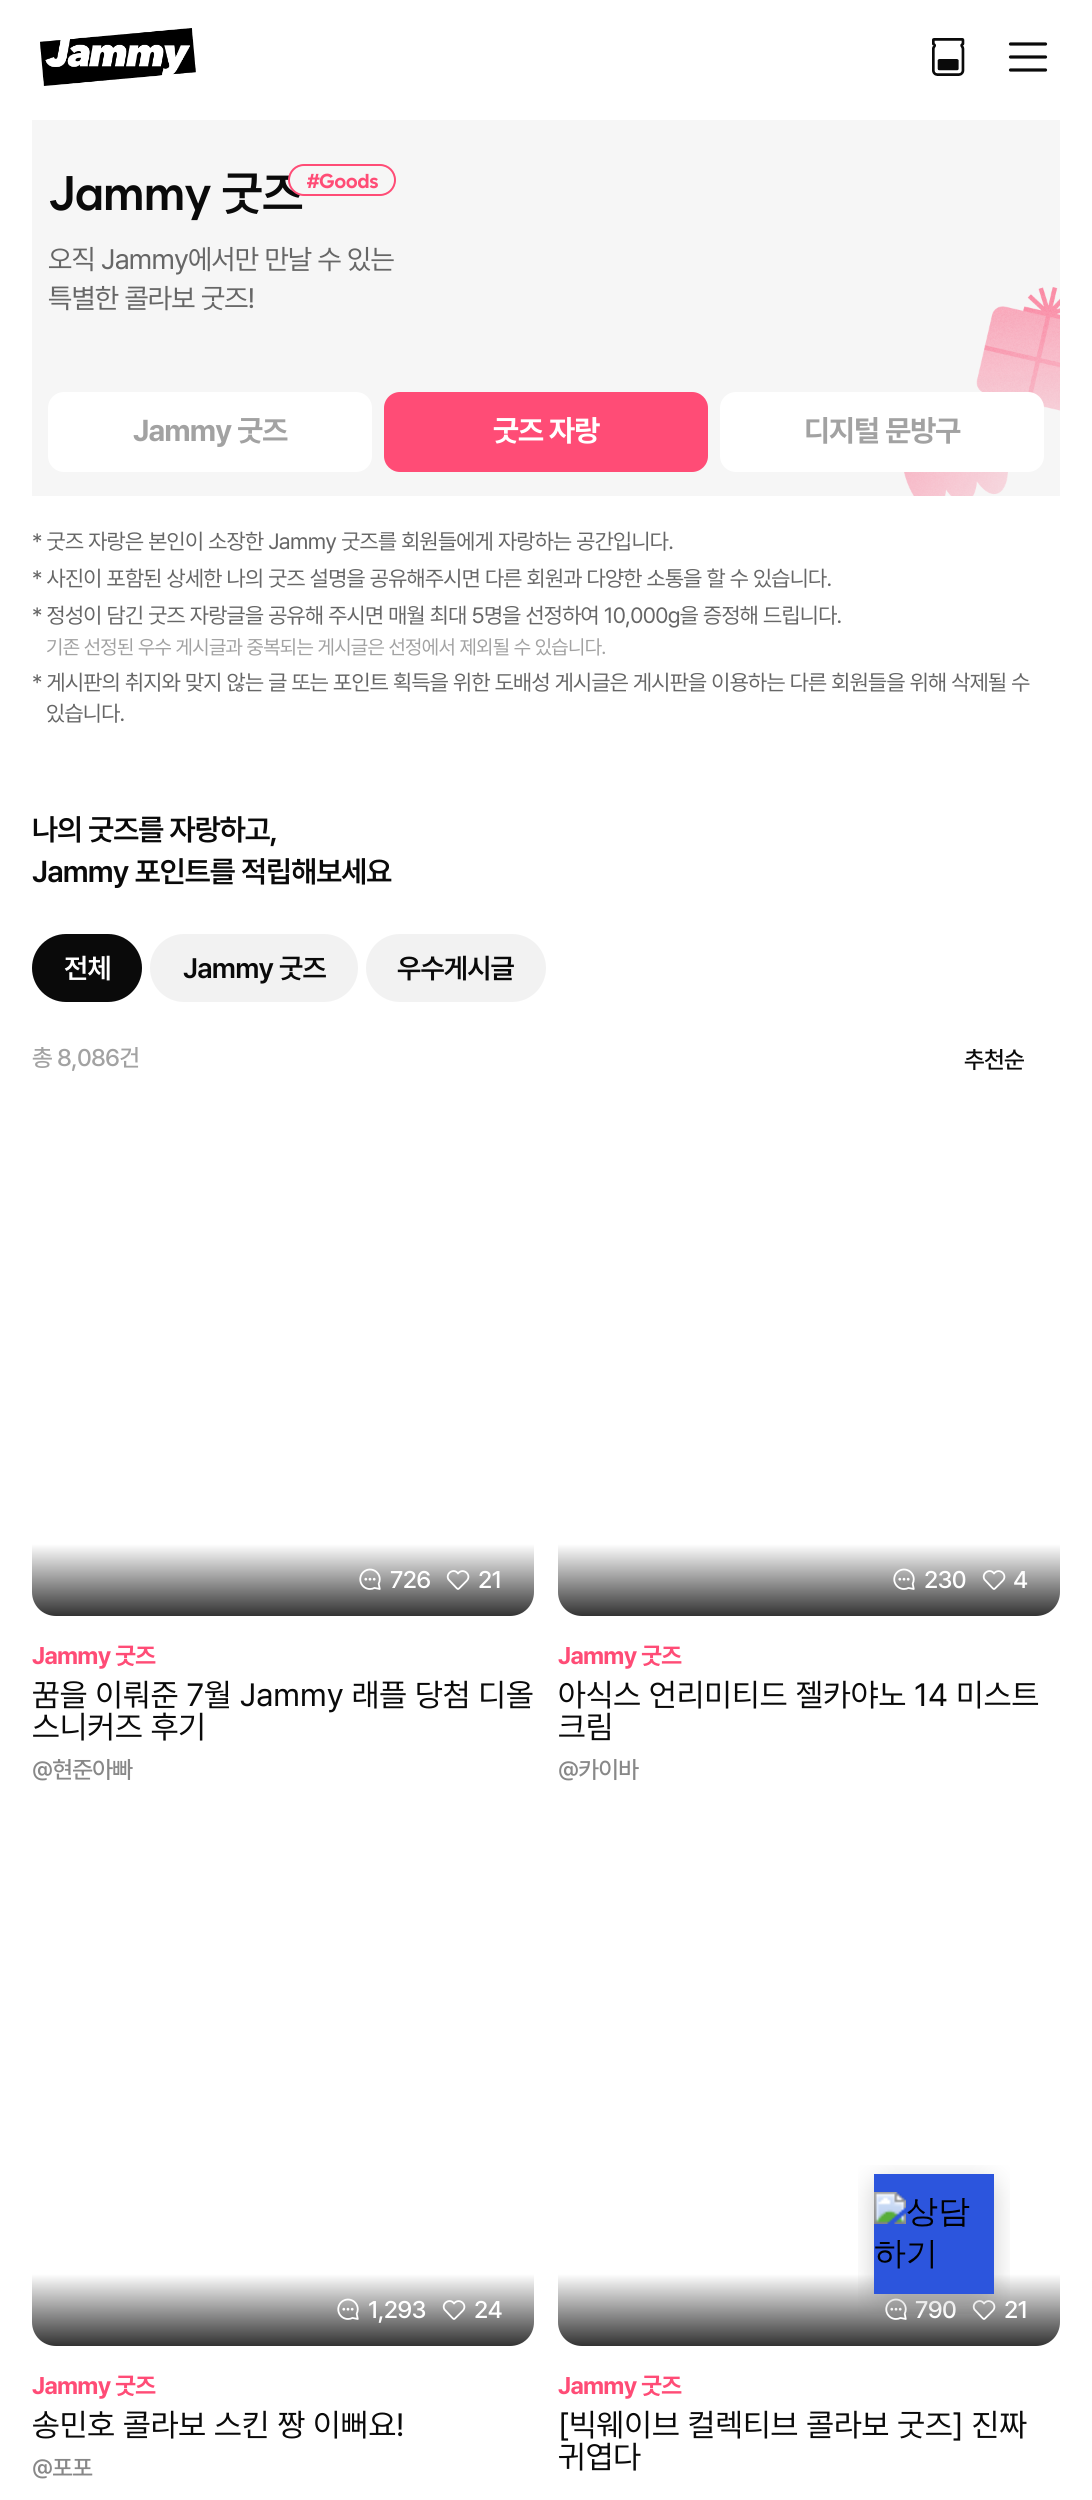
import math
import cairo

surface = cairo.ImageSurface(cairo.FORMAT_RGB24, 1092, 2500)
cr = cairo.Context(surface)
options = cairo.FontOptions()
options.set_hint_metrics(cairo.HINT_METRICS_OFF)
options.set_hint_style(cairo.HINT_STYLE_NONE)
cr.set_font_options(options)
cr.set_miter_limit(4)


def rgb(code):
    cr.set_source_rgb(*(v / 255 for v in bytes.fromhex(code[-6:])))


def tracked(x, y, s, letter, word):
    cr.move_to(x, y)
    for ch in s:
        cr.show_text(ch)
        cr.rel_move_to(letter + word * (ch == ' '), 0)


def rrect(x, y, w, h, r):
    cr.new_sub_path()
    for i, (u, v) in enumerate([(x + w - r, y + h - r), (x + r, y + h - r), (x + r, y + r), (x + w - r, y + r)]):
        cr.arc(u, v, r, i * math.pi / 2, (i + 1) * math.pi / 2)
    cr.close_path()


def image(path, x, y, w, h):
    cr.save()
    cr.set_source_surface(cairo.ImageSurface.create_from_png(path), x, y)
    cr.rectangle(x, y, w, h)
    cr.fill()
    cr.restore()


rgb("#ffffff")
cr.paint()
image("img/1.png", 40, 28, 156, 58)
image("img/2.png", 932, 38, 33, 38)
cr.new_path()
cr.move_to(1010.5, 44)
cr.line_to(1045.5, 44)
cr.move_to(1010.5, 57)
cr.line_to(1045.5, 57)
cr.move_to(1010.5, 70)
cr.line_to(1045.5, 70)
rgb("#0a0a0a")
cr.set_line_width(3.2)
cr.set_line_cap(cairo.LINE_CAP_ROUND)
cr.stroke()
rgb("#f6f6f6")
cr.rectangle(32, 120, 1028, 376)
cr.fill()
image("img/3.png", 904, 287, 156, 209)
rgb("#ffffff")
rrect(48, 392, 324, 80, 16)
cr.fill()
rgb("#ff4c76")
rrect(384, 392, 324, 80, 16)
cr.fill()
rgb("#ffffff")
rrect(720, 392, 324, 80, 16)
cr.fill()
rgb("#0a0a0a")
rrect(32, 934, 110, 68, 34)
cr.fill()
rgb("#f2f2f2")
rrect(150, 934, 208, 68, 34)
cr.fill()
rrect(366, 934, 180, 68, 34)
cr.fill()
gradient = cairo.LinearGradient(283, 1616, 283, 1544)
gradient.add_color_stop_rgba(0, 0.2, 0.2, 0.2, 1)
gradient.add_color_stop_rgba(1, 1, 1, 1, 1)
cr.set_source(gradient)
cr.new_path()
cr.move_to(32, 1544)
cr.line_to(534, 1544)
cr.line_to(534, 1592)
cr.curve_to(534, 1605.5, 523.5, 1616, 510, 1616)
cr.line_to(56, 1616)
cr.curve_to(42.5, 1616, 32, 1605.5, 32, 1592)
cr.close_path()
cr.fill()
image("img/4.png", 359, 1568, 22, 22)
cr.new_path()
cr.move_to(466.5, 1581)
cr.line_to(460, 1587.5)
cr.curve_to(458, 1589.5, 458, 1589.5, 456, 1587.5)
cr.line_to(448.5, 1579.5)
cr.curve_to(445, 1573.5, 454, 1567.5, 458, 1573.5)
cr.curve_to(463, 1567, 472.5, 1575, 466.5, 1581)
rgb("#ffffff")
cr.set_line_width(1.8)
cr.set_line_join(cairo.LINE_JOIN_ROUND)
cr.stroke()
gradient = cairo.LinearGradient(809, 1616, 809, 1544)
gradient.add_color_stop_rgba(0, 0.2, 0.2, 0.2, 1)
gradient.add_color_stop_rgba(1, 1, 1, 1, 1)
cr.set_source(gradient)
cr.new_path()
cr.move_to(558, 1544)
cr.line_to(1060, 1544)
cr.line_to(1060, 1592)
cr.curve_to(1060, 1605.5, 1049.5, 1616, 1036, 1616)
cr.line_to(582, 1616)
cr.curve_to(568.5, 1616, 558, 1605.5, 558, 1592)
cr.close_path()
cr.fill()
image("img/4.png", 893, 1568, 22, 22)
cr.new_path()
cr.move_to(1002.5, 1581)
cr.line_to(996, 1587.5)
cr.curve_to(994, 1589.5, 994, 1589.5, 992, 1587.5)
cr.line_to(984.5, 1579.5)
cr.curve_to(981, 1573.5, 990, 1567.5, 994, 1573.5)
cr.curve_to(999, 1567, 1008.5, 1575, 1002.5, 1581)
rgb("#ffffff")
cr.stroke()
gradient = cairo.LinearGradient(283, 2346, 283, 2274)
gradient.add_color_stop_rgba(0, 0.2, 0.2, 0.2, 1)
gradient.add_color_stop_rgba(1, 1, 1, 1, 1)
cr.set_source(gradient)
cr.new_path()
cr.move_to(32, 2274)
cr.line_to(534, 2274)
cr.line_to(534, 2322)
cr.curve_to(534, 2335.5, 523.5, 2346, 510, 2346)
cr.line_to(56, 2346)
cr.curve_to(42.5, 2346, 32, 2335.5, 32, 2322)
cr.close_path()
cr.fill()
image("img/4.png", 337, 2298, 22, 22)
cr.new_path()
cr.move_to(462.5, 2311)
cr.line_to(456, 2317.5)
cr.curve_to(454, 2319.5, 454, 2319.5, 452, 2317.5)
cr.line_to(444.5, 2309.5)
cr.curve_to(441, 2303.5, 450, 2297.5, 454, 2303.5)
cr.curve_to(459, 2297, 468.5, 2305, 462.5, 2311)
rgb("#ffffff")
cr.stroke()
gradient = cairo.LinearGradient(809, 2346, 809, 2274)
gradient.add_color_stop_rgba(0, 0.2, 0.2, 0.2, 1)
gradient.add_color_stop_rgba(1, 1, 1, 1, 1)
cr.set_source(gradient)
cr.new_path()
cr.move_to(558, 2274)
cr.line_to(1060, 2274)
cr.line_to(1060, 2322)
cr.curve_to(1060, 2335.5, 1049.5, 2346, 1036, 2346)
cr.line_to(582, 2346)
cr.curve_to(568.5, 2346, 558, 2335.5, 558, 2322)
cr.close_path()
cr.fill()
image("img/4.png", 885, 2298, 22, 22)
cr.new_path()
cr.move_to(992.5, 2311)
cr.line_to(986, 2317.5)
cr.curve_to(984, 2319.5, 984, 2319.5, 982, 2317.5)
cr.line_to(974.5, 2309.5)
cr.curve_to(971, 2303.5, 980, 2297.5, 984, 2303.5)
cr.curve_to(989, 2297, 998.5, 2305, 992.5, 2311)
rgb("#ffffff")
cr.stroke()
cr.select_font_face("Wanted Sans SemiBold")
cr.set_font_size(48)
rgb("#0a0a0a")
tracked(48, 210, "Jammy 굿즈", -1, 0)
rgb("#f6f6f6")
rrect(289, 165, 106, 30, 15)
cr.fill_preserve()
rgb("#ff4c76")
cr.set_line_width(2)
cr.set_line_cap(cairo.LINE_CAP_BUTT)
cr.set_line_join(cairo.LINE_JOIN_MITER)
cr.stroke()
cr.select_font_face("Wanted Sans", cairo.FONT_SLANT_NORMAL, cairo.FONT_WEIGHT_BOLD)
cr.set_font_size(20)
tracked(307, 188, "#Goods", -0.5, 0)
cr.select_font_face("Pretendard")
cr.set_font_size(28)
rgb("#666666")
tracked(48, 269, "오직 Jammy에서만 만날 수 있는", -0.8, 0)
tracked(48, 308, "특별한 콜라보 굿즈!", -0.8, 0)
cr.select_font_face("Pretendard", cairo.FONT_SLANT_NORMAL, cairo.FONT_WEIGHT_BOLD)
cr.set_font_size(30)
rgb("#a2a2a2")
tracked(133, 441, "Jammy 굿즈", -0.9, 0)
rgb("#ffffff")
tracked(493, 441, "굿즈 자랑", -0.9, 0)
rgb("#a2a2a2")
tracked(804, 441, "디지털 문방구", -0.9, 0)
cr.select_font_face("Pretendard")
cr.set_font_size(22)
rgb("#666666")
for x, y, s in [
    (32, 549, "* 굿즈 자랑은 본인이 소장한 Jammy 굿즈를 회원들에게 자랑하는 공간입니다."),
    (32, 586, "* 사진이 포함된 상세한 나의 굿즈 설명을 공유해주시면 다른 회원과 다양한 소통을 할 수 있습니다."),
    (32, 623, "* 정성이 담긴 굿즈 자랑글을 공유해 주시면 매월 최대 5명을 선정하여 10,000g을 증정해 드립니다."),
]:
    tracked(x, y, s, -0.65, 0)
cr.set_font_size(20)
rgb("#a2a2a2")
tracked(46, 654, "기존 선정된 우수 게시글과 중복되는 게시글은 선정에서 제외될 수 있습니다.", -0.65, 0)
cr.set_font_size(22)
rgb("#666666")
tracked(32, 690, "* 게시판의 취지와 맞지 않는 글 또는 포인트 획득을 위한 도배성 게시글은 게시판을 이용하는 다른 회원들을 위해 삭제될 수", -0.65, 0)
tracked(46, 721, "있습니다.", -0.65, 0)
cr.select_font_face("Pretendard SemiBold")
cr.set_font_size(30)
rgb("#0a0a0a")
tracked(32, 840, "나의 굿즈를 자랑하고,", -0.9, 0)
tracked(32, 882, "Jammy 포인트를 적립해보세요", -0.9, 0)
cr.set_font_size(28)
rgb("#ffffff")
tracked(64, 978, "전체", -0.8, 0)
rgb("#0a0a0a")
tracked(183, 978, "Jammy 굿즈", -0.8, 0)
tracked(397, 978, "우수게시글", -0.8, 0)
cr.select_font_face("Pretendard Medium")
cr.set_font_size(24)
rgb("#a2a2a2")
tracked(32, 1066, "총 8,086건", -0.75, 0)
rgb("#0a0a0a")
tracked(964, 1068, "추천순", -0.75, 0)
rgb("#ffffff")
tracked(390, 1588, "726", -0.75, 0)
tracked(478, 1588, "21", -0.75, 0)
cr.select_font_face("Pretendard", cairo.FONT_SLANT_NORMAL, cairo.FONT_WEIGHT_BOLD)
rgb("#ff4c76")
tracked(32, 1664, "Jammy 굿즈", -0.75, 0)
cr.select_font_face("Pretendard")
cr.set_font_size(32)
rgb("#0a0a0a")
cr.move_to(32, 1706)
cr.show_text("꿈을 이뤄준 7월 Jammy 래플 당첨 디올")
cr.move_to(32, 1738)
cr.show_text("스니커즈 후기")
cr.select_font_face("Pretendard Medium")
cr.set_font_size(24)
rgb("#888888")
tracked(32, 1778, "@현준아빠", -0.75, 0)
rgb("#ffffff")
tracked(924, 1588, "230", -0.75, 0)
tracked(1013, 1588, "4", -0.75, 0)
cr.select_font_face("Pretendard", cairo.FONT_SLANT_NORMAL, cairo.FONT_WEIGHT_BOLD)
rgb("#ff4c76")
tracked(558, 1664, "Jammy 굿즈", -0.75, 0)
cr.select_font_face("Pretendard")
cr.set_font_size(32)
rgb("#0a0a0a")
cr.move_to(558, 1706)
cr.show_text("아식스 언리미티드 젤카야노 14 미스트")
cr.move_to(558, 1738)
cr.show_text("크림")
cr.select_font_face("Pretendard Medium")
cr.set_font_size(24)
rgb("#888888")
tracked(558, 1778, "@카이바", -0.75, 0)
rgb("#ffffff")
tracked(368, 2318, "1,293", -0.75, 0)
tracked(474, 2318, "24", -0.75, 0)
cr.select_font_face("Pretendard", cairo.FONT_SLANT_NORMAL, cairo.FONT_WEIGHT_BOLD)
rgb("#ff4c76")
tracked(32, 2394, "Jammy 굿즈", -0.75, 0)
cr.select_font_face("Pretendard")
cr.set_font_size(32)
rgb("#0a0a0a")
cr.move_to(32, 2436)
cr.show_text("송민호 콜라보 스킨 짱 이뻐요!")
cr.select_font_face("Pretendard Medium")
cr.set_font_size(24)
rgb("#888888")
tracked(32, 2476, "@포포", -0.75, 0)
rgb("#ffffff")
tracked(915, 2318, "790", -0.75, 0)
tracked(1004, 2318, "21", -0.75, 0)
cr.select_font_face("Pretendard", cairo.FONT_SLANT_NORMAL, cairo.FONT_WEIGHT_BOLD)
rgb("#ff4c76")
tracked(558, 2394, "Jammy 굿즈", -0.75, 0)
cr.select_font_face("Pretendard")
cr.set_font_size(32)
rgb("#0a0a0a")
cr.move_to(558, 2436)
cr.show_text("[빅웨이브 컬렉티브 콜라보 굿즈] 진짜")
cr.move_to(558, 2468)
cr.show_text("귀엽다")
image("img/5.png", 858, 2165, 152, 149)
surface.write_to_png("page.png")
